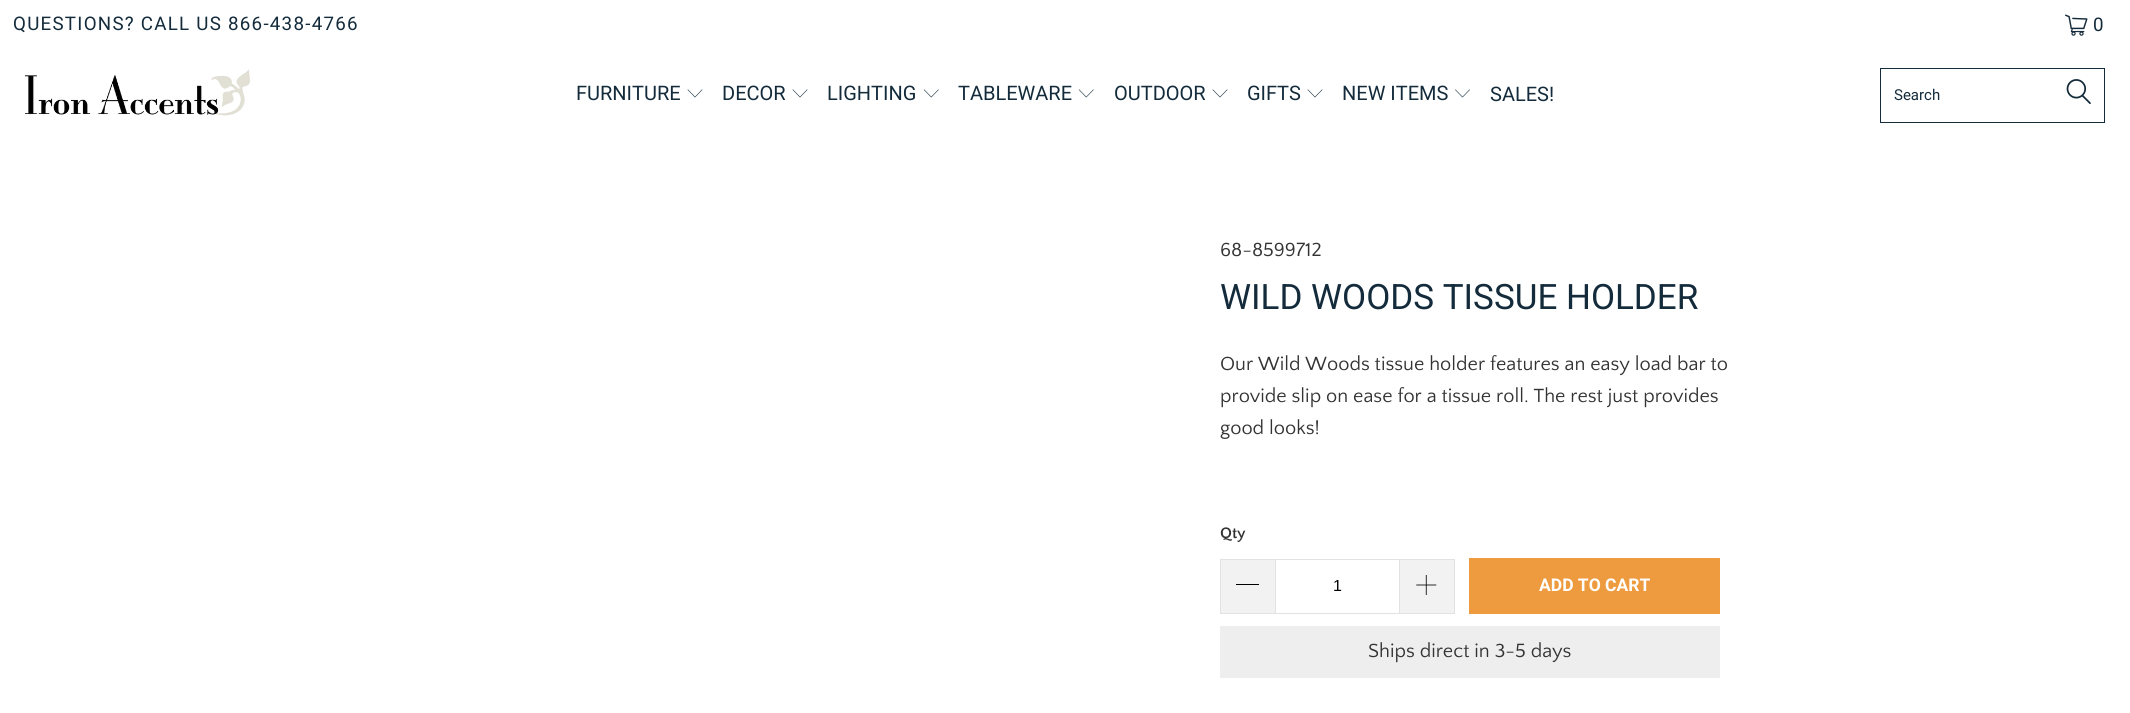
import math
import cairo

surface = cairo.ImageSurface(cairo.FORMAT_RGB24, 2130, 713)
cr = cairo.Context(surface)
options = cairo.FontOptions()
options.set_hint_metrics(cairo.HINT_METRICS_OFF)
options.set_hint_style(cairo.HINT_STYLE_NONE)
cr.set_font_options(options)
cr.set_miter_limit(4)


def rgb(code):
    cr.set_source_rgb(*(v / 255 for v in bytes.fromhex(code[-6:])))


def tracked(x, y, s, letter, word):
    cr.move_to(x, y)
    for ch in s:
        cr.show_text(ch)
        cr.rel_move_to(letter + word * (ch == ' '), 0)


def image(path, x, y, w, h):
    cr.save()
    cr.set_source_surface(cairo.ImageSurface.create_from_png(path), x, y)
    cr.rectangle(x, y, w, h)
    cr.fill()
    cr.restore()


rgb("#ffffff")
cr.paint()
image("img/1.png", 2065, 14, 23, 22)
image("img/2.png", 25, 69, 225, 47)
image("img/3.png", 687, 89, 16, 9)
image("img/3.png", 792, 89, 16, 9)
image("img/4.png", 923, 89, 16, 9)
image("img/4.png", 1078, 89, 16, 9)
image("img/3.png", 1212, 89, 16, 9)
image("img/3.png", 1307, 89, 16, 9)
image("img/5.png", 1455, 89, 15, 9)
cr.rectangle(1880.5, 68.5, 224, 54)
rgb("#142b3b")
cr.set_line_width(1)
cr.stroke()
image("img/6.png", 2066, 79, 25, 25)
for x, y, w, h, color in [
    (1221, 560, 54, 53, "#f2f2f2"),
    (1220, 559, 55, 1, "#e2e2e2"),
    (1220, 613, 55, 1, "#e2e2e2"),
    (1220, 559, 1, 55, "#e2e2e2"),
    (1236, 584, 23, 1, "#000000"),
]:
    rgb(color)
    cr.rectangle(x, y, w, h)
    cr.fill()
cr.rectangle(1275.5, 559.5, 124, 54)
rgb("#e2e2e2")
cr.stroke()
for x, y, w, h, color in [
    (1400, 560, 54, 53, "#f2f2f2"),
    (1400, 559, 55, 1, "#e2e2e2"),
    (1454, 559, 1, 55, "#e2e2e2"),
    (1400, 613, 55, 1, "#e2e2e2"),
]:
    rgb(color)
    cr.rectangle(x, y, w, h)
    cr.fill()
image("img/7.png", 1416, 575, 21, 20)
rgb("#ee9b40")
cr.rectangle(1469, 558, 251, 56)
cr.fill()
rgb("#eeeeee")
cr.rectangle(1220, 626, 500, 52)
cr.fill()
cr.select_font_face("Roboto")
cr.set_font_size(18.75)
rgb("#142b3b")
tracked(13, 30, "QUESTIONS? CALL US 866-438-4766", 1.25, 0)
tracked(2093, 31, "0", 1.25, 0)
cr.set_font_size(20)
for x, y, s in [
    (576, 100, "FURNITURE"),
    (722, 100, "DECOR"),
    (827, 100, "LIGHTING"),
    (958, 100, "TABLEWARE"),
    (1114, 100, "OUTDOOR"),
    (1247, 100, "GIFTS"),
    (1342, 100, "NEW ITEMS"),
    (1490, 101, "SALES!"),
]:
    cr.move_to(x, y)
    cr.show_text(s)
cr.set_font_size(15)
cr.move_to(1894, 100)
cr.show_text("Search")
cr.select_font_face("Quattrocento Sans")
cr.set_font_size(20)
rgb("#333333")
cr.move_to(1220, 256)
cr.show_text("68-8599712")
cr.select_font_face("Roboto")
cr.set_font_size(35)
rgb("#142b3b")
cr.move_to(1220, 309)
cr.show_text("WILD WOODS TISSUE HOLDER")
cr.select_font_face("Quattrocento Sans")
cr.set_font_size(20)
rgb("#333333")
for x, y, s in [
    (1220, 370, "Our Wild Woods tissue holder features an easy load bar to"),
    (1220, 402, "provide slip on ease for a tissue roll. The rest just provides"),
    (1220, 434, "good looks!"),
]:
    cr.move_to(x, y)
    cr.show_text(s)
cr.select_font_face("Quattrocento Sans", cairo.FONT_SLANT_NORMAL, cairo.FONT_WEIGHT_BOLD)
cr.set_font_size(16)
cr.move_to(1220, 538)
cr.show_text("Qty")
cr.select_font_face("Liberation Sans")
rgb("#000000")
cr.move_to(1333, 591)
cr.show_text("1")
cr.select_font_face("Roboto", cairo.FONT_SLANT_NORMAL, cairo.FONT_WEIGHT_BOLD)
cr.set_font_size(17.5)
rgb("#ffffff")
cr.move_to(1539, 591)
cr.show_text("ADD TO CART")
cr.select_font_face("Quattrocento Sans")
cr.set_font_size(20)
rgb("#333333")
cr.move_to(1368, 657)
cr.show_text("Ships direct in 3-5 days")
surface.write_to_png("page.png")
